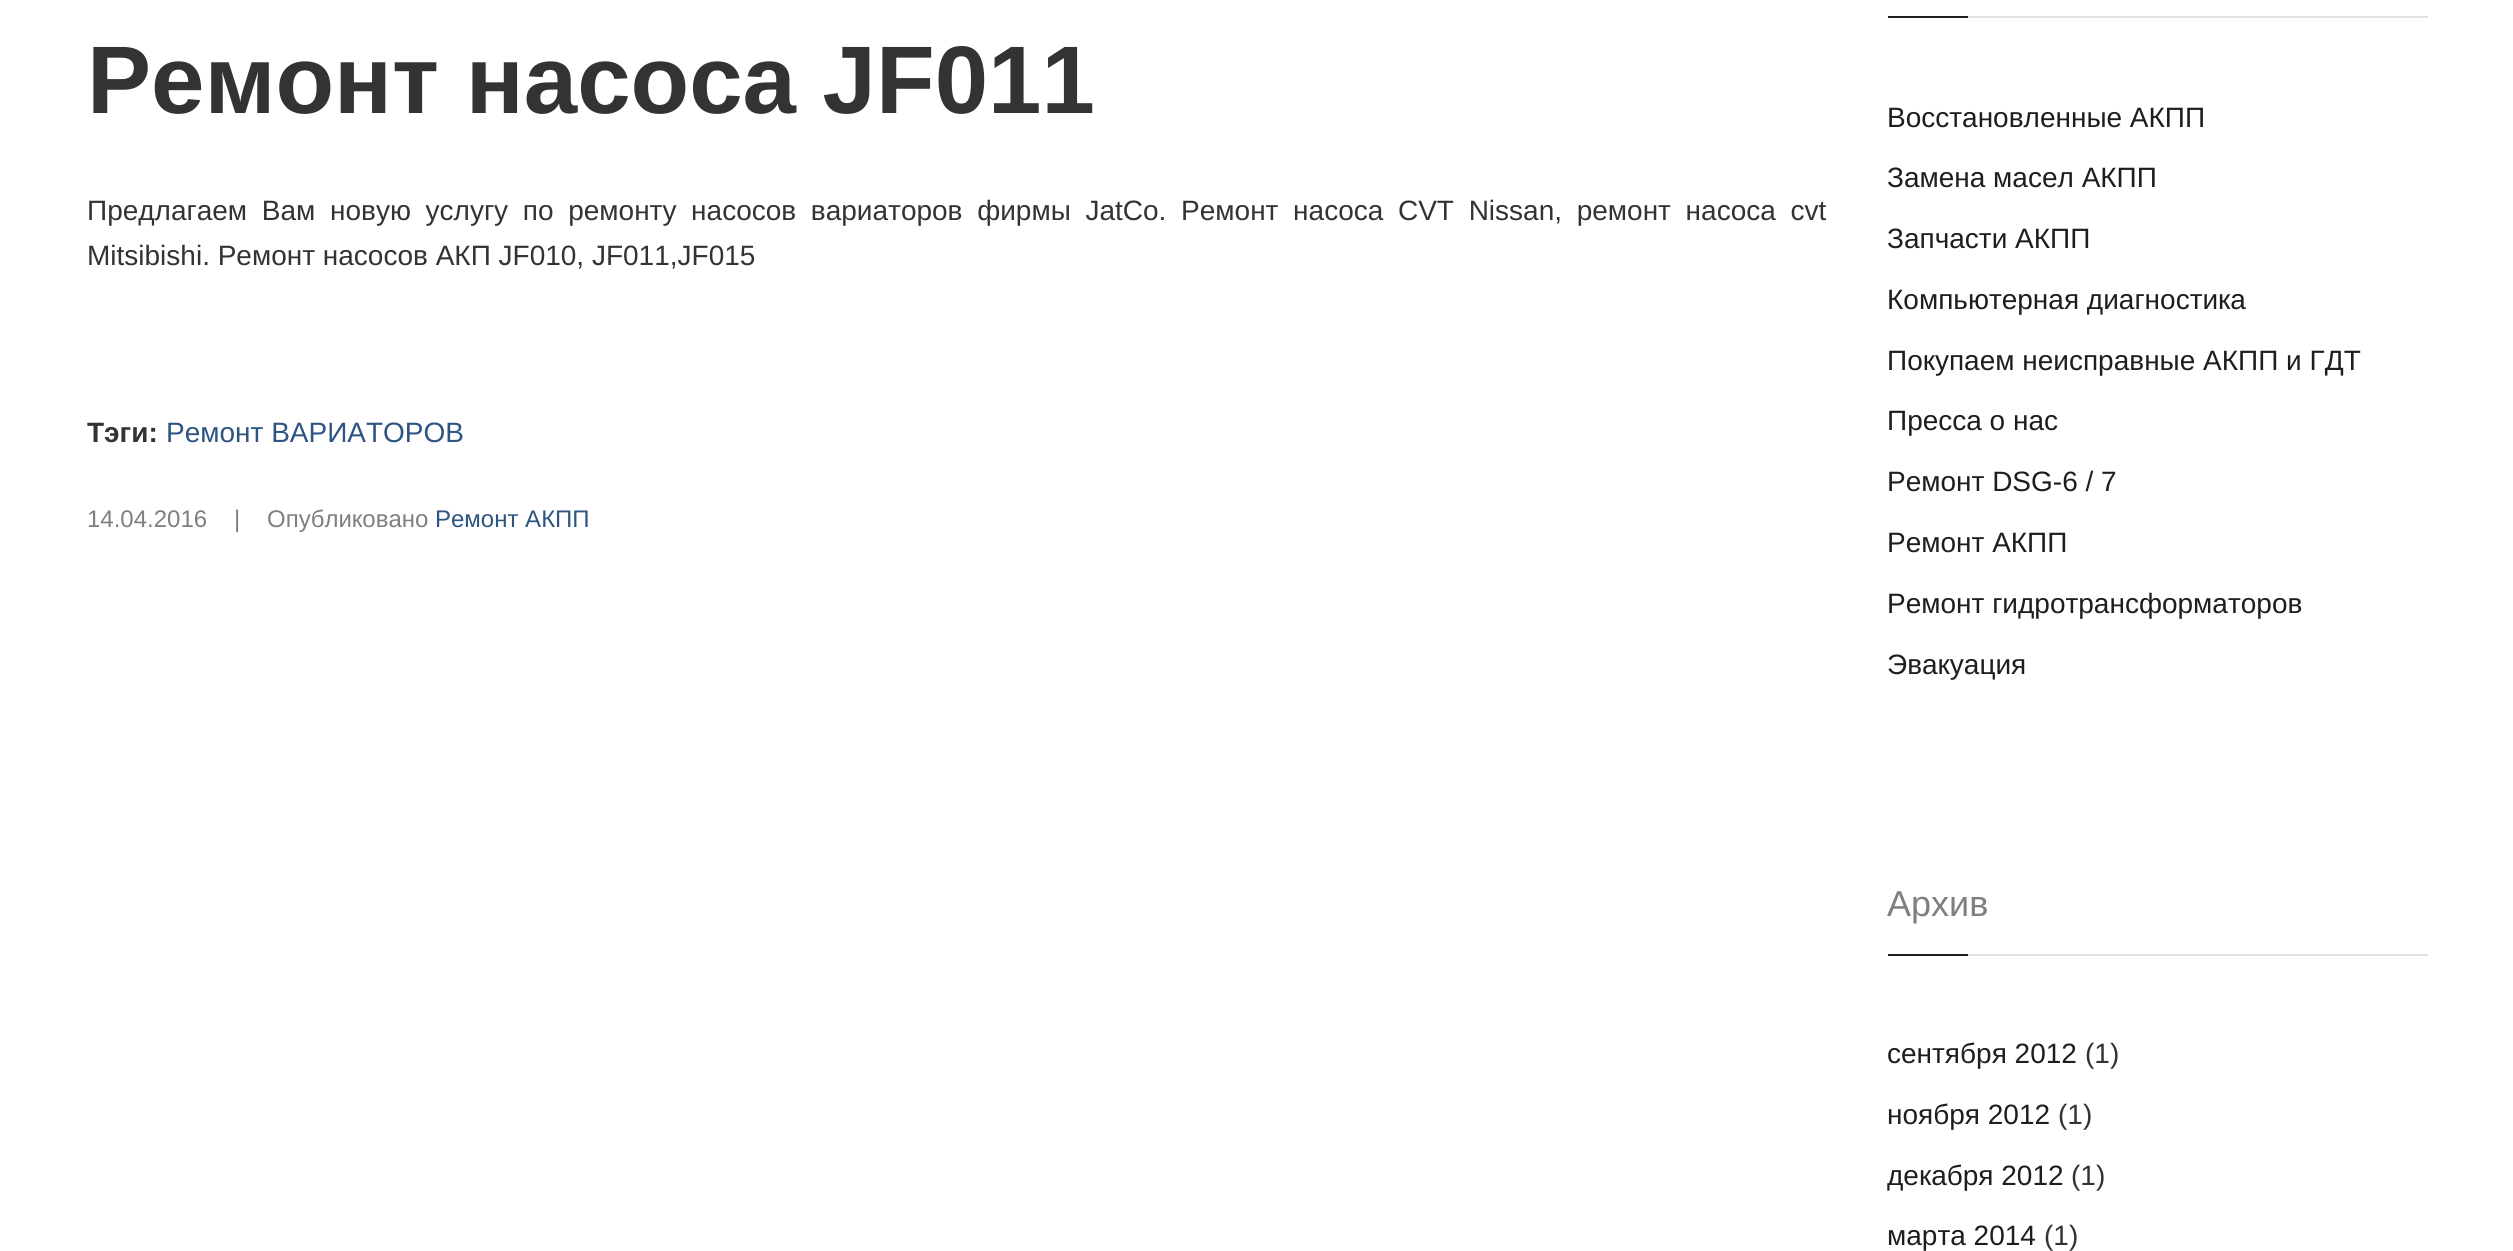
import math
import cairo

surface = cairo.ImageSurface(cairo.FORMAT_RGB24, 2513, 1251)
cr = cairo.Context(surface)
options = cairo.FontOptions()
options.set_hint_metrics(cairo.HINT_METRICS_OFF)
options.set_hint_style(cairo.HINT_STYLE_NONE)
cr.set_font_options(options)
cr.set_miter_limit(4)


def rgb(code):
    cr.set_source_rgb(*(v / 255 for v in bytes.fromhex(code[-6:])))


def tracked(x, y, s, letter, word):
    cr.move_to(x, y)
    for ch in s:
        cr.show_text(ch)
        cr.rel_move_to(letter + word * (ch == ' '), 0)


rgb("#ffffff")
cr.paint()
for x, y, w, h, color in [
    (1968, 16, 460, 2, "#e1e1e1"),
    (1888, 16, 80, 2, "#1e1e1e"),
    (1968, 954, 460, 2, "#e1e1e1"),
    (1888, 954, 80, 2, "#1e1e1e"),
]:
    rgb(color)
    cr.rectangle(x, y, w, h)
    cr.fill()
cr.select_font_face("Liberation Sans", cairo.FONT_SLANT_NORMAL, cairo.FONT_WEIGHT_BOLD)
cr.set_font_size(96)
rgb("#333333")
cr.move_to(87, 113)
cr.show_text("Ремонт насоса JF011")
cr.select_font_face("Liberation Sans")
cr.set_font_size(28)
tracked(87, 220, "Предлагаем Вам новую услугу по ремонту насосов вариаторов фирмы JatCo. Ремонт насоса CVT Nissan, ремонт насоса cvt", 0, 6.9)
cr.move_to(87, 265)
cr.show_text("Mitsibishi. Ремонт насосов АКП JF010, JF011,JF015")
cr.select_font_face("Liberation Sans", cairo.FONT_SLANT_NORMAL, cairo.FONT_WEIGHT_BOLD)
cr.move_to(87, 442)
cr.show_text("Тэги:")
cr.select_font_face("Liberation Sans")
rgb("#2e5481")
cr.move_to(166, 442)
cr.show_text("Ремонт ВАРИАТОРОВ")
cr.set_font_size(24)
rgb("#7f7f7f")
for x, y, s in [
    (87, 527, "14.04.2016"),
    (234, 527, "|"),
    (267, 527, "Опубликовано"),
]:
    cr.move_to(x, y)
    cr.show_text(s)
rgb("#2e5481")
cr.move_to(435, 527)
cr.show_text("Ремонт АКПП")
cr.set_font_size(28)
rgb("#1e1e1e")
for x, y, s in [
    (1887, 127, "Восстановленные АКПП"),
    (1887, 187, "Замена масел АКПП"),
    (1887, 248, "Запчасти АКПП"),
    (1887, 309, "Компьютерная диагностика"),
    (1887, 370, "Покупаем неисправные АКПП и ГДТ"),
    (1887, 430, "Пресса о нас"),
    (1887, 491, "Ремонт DSG-6 / 7"),
    (1887, 552, "Ремонт АКПП"),
    (1887, 613, "Ремонт гидротрансформаторов"),
    (1887, 674, "Эвакуация"),
]:
    cr.move_to(x, y)
    cr.show_text(s)
cr.set_font_size(36)
rgb("#7f7f7f")
cr.move_to(1887, 916)
cr.show_text("Архив")
cr.set_font_size(28)
rgb("#1e1e1e")
cr.move_to(1887, 1063)
cr.show_text("сентября 2012")
rgb("#333333")
cr.move_to(2085, 1063)
cr.show_text("(1)")
rgb("#1e1e1e")
cr.move_to(1887, 1124)
cr.show_text("ноября 2012")
rgb("#333333")
cr.move_to(2058, 1124)
cr.show_text("(1)")
rgb("#1e1e1e")
cr.move_to(1887, 1185)
cr.show_text("декабря 2012")
rgb("#333333")
cr.move_to(2071, 1185)
cr.show_text("(1)")
rgb("#1e1e1e")
cr.move_to(1887, 1245)
cr.show_text("марта 2014")
rgb("#333333")
cr.move_to(2044, 1245)
cr.show_text("(1)")
surface.write_to_png("page.png")
